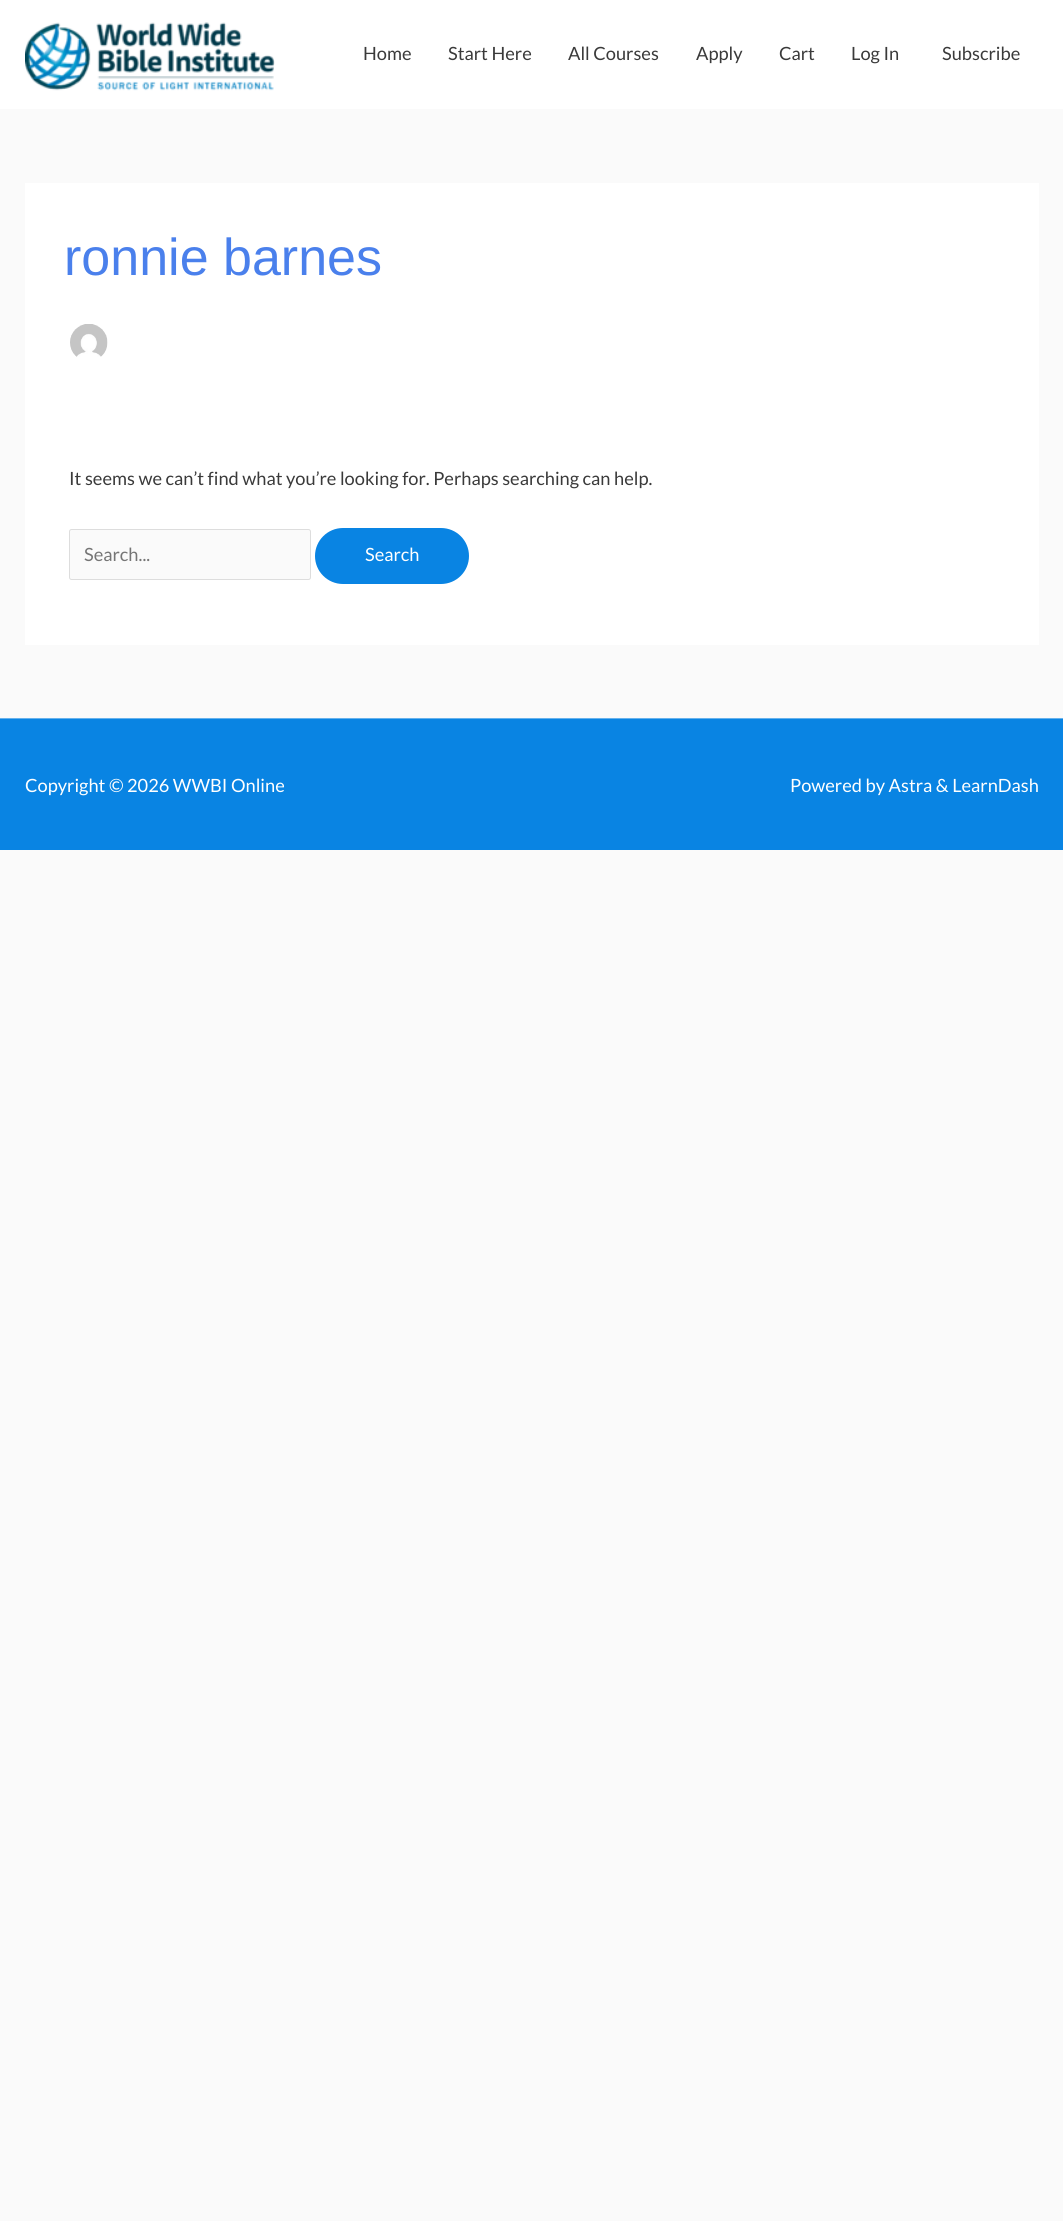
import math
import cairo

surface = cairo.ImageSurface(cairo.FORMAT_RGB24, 1063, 2221)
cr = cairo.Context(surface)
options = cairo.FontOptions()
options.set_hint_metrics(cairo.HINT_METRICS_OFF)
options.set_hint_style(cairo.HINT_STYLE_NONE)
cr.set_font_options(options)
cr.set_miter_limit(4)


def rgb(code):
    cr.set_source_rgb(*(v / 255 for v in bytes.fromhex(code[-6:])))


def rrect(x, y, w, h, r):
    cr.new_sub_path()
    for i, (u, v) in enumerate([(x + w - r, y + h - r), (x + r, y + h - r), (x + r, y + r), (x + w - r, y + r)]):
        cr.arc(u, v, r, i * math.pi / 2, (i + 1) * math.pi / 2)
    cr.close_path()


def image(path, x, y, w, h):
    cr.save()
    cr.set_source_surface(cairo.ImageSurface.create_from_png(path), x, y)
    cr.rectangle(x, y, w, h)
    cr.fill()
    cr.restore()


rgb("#fafafa")
cr.paint()
rgb("#ffffff")
cr.rectangle(0, 0, 1063, 109)
cr.fill()
image("img/1.png", 25, 22, 250, 69)
cr.rectangle(25, 183, 1014, 462)
cr.fill()
image("img/2.png", 70, 324, 38, 33)
rgb("#fafafa")
rrect(69.5, 529.5, 241, 50, 2)
cr.fill_preserve()
rgb("#dddddd")
cr.set_line_width(1)
cr.stroke()
rgb("#0984e3")
rrect(315, 528, 154, 56, 28)
cr.fill()
rgb("#65b1ec")
cr.rectangle(0, 718, 1063, 1)
cr.fill()
rgb("#0984e3")
cr.rectangle(0, 719, 1063, 131)
cr.fill()
cr.select_font_face("Lato")
cr.set_font_size(18.25)
rgb("#3a3a3a")
for x, y, s in [
    (363, 60, "Home"),
    (448, 60, "Start Here"),
    (568, 60, "All Courses"),
    (696, 60, "Apply"),
    (779, 60, "Cart"),
    (851, 60, "Log In"),
    (942, 60, "Subscribe"),
]:
    cr.move_to(x, y)
    cr.show_text(s)
cr.select_font_face("Liberation Sans")
cr.set_font_size(52)
rgb("#4a80ec")
cr.move_to(64, 275)
cr.show_text("ronnie barnes")
cr.select_font_face("Lato")
cr.set_font_size(18.25)
rgb("#3a3a3a")
cr.move_to(69, 485)
cr.show_text("It seems we can’t find what you’re looking for. Perhaps searching can help.")
rgb("#757575")
cr.move_to(84, 561)
cr.show_text("Search...")
rgb("#ffffff")
for x, y, s in [
    (365, 561, "Search"),
    (25, 792, "Copyright © 2026 WWBI Online"),
    (790, 792, "Powered by Astra & LearnDash"),
]:
    cr.move_to(x, y)
    cr.show_text(s)
surface.write_to_png("page.png")
